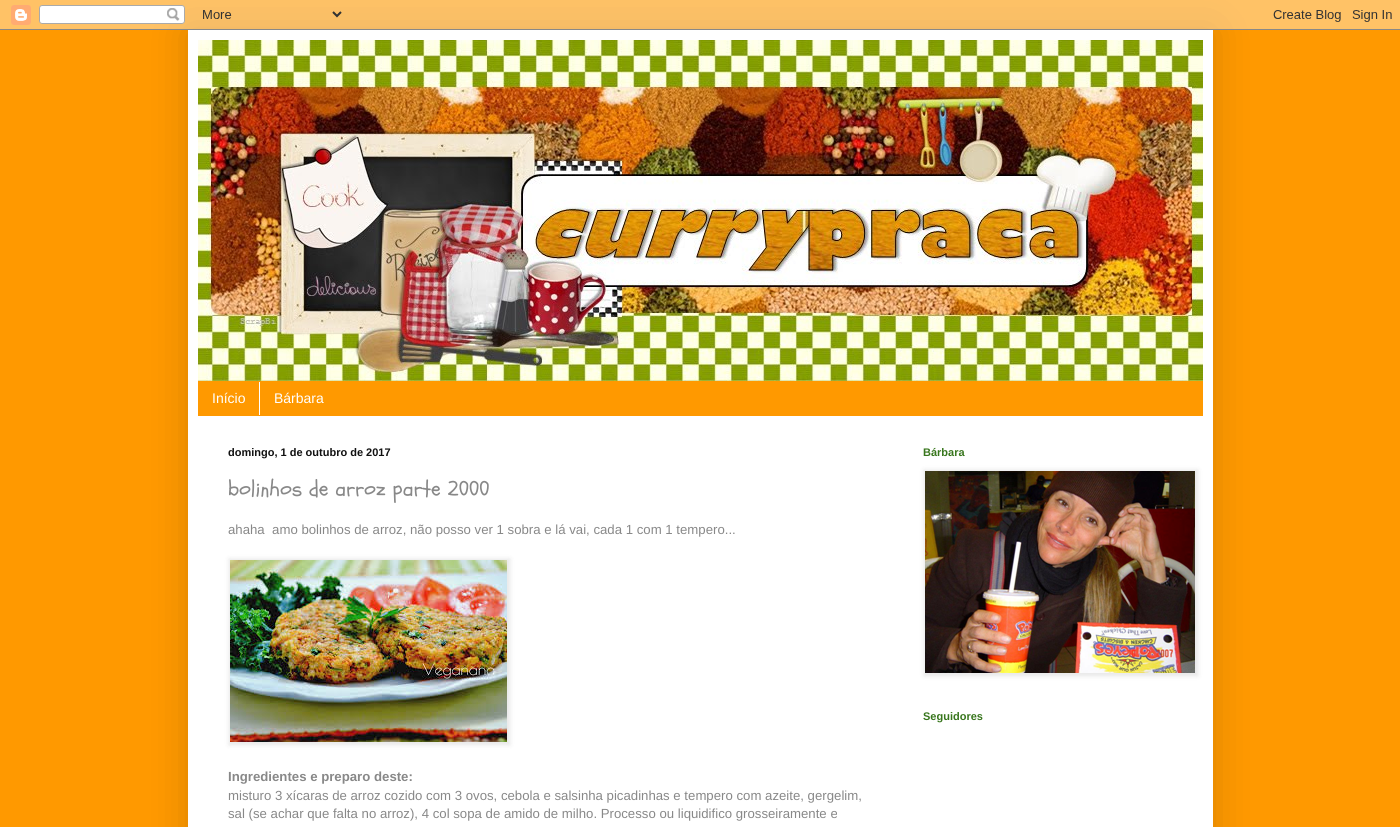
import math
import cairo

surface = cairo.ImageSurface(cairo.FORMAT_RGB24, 1400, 827)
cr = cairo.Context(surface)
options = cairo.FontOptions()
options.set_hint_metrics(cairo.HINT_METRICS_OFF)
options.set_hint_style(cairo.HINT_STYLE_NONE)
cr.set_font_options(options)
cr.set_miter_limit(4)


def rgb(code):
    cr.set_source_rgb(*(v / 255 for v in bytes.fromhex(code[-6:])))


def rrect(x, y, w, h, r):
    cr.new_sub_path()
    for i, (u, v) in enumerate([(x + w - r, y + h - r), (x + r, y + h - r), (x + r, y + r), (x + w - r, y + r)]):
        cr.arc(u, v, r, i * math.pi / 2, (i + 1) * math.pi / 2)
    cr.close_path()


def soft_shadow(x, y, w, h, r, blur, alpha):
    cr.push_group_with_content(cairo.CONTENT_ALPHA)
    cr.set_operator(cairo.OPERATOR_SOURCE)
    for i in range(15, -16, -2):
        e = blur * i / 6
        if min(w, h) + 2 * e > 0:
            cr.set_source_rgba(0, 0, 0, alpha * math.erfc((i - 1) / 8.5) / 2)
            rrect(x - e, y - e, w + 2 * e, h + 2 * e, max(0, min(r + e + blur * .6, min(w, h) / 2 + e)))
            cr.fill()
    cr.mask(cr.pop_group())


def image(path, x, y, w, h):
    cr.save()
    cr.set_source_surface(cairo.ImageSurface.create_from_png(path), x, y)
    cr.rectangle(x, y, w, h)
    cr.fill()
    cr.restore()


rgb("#ff9900")
cr.paint()
rgb("#000000")
soft_shadow(188, 30, 1025, 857, 0, 20, 0.15)
image("img/1.png", 0, 0, 1400, 30)
rgb("#ffffff")
cr.rectangle(188, 30, 1025, 797)
cr.fill()
image("img/2.png", 198, 40, 1005, 341)
rgb("#ff9900")
cr.rectangle(198, 381, 1005, 35)
cr.fill()
rgb("#ffffff")
cr.rectangle(259, 382, 1, 33)
cr.fill()
rgb("#000000")
soft_shadow(229, 559, 281, 186, 0, 2.5, 0.1)
image("img/3.png", 230, 560, 277, 182)
soft_shadow(924, 470, 274, 206, 0, 2.5, 0.1)
image("img/4.png", 925, 471, 270, 202)
cr.select_font_face("Liberation Sans")
cr.set_font_size(14)
rgb("#ffffff")
cr.move_to(212, 403)
cr.show_text("Início")
cr.move_to(274, 403)
cr.show_text("Bárbara")
cr.select_font_face("Liberation Sans", cairo.FONT_SLANT_NORMAL, cairo.FONT_WEIGHT_BOLD)
cr.set_font_size(11)
rgb("#111111")
cr.move_to(228, 456)
cr.show_text("domingo, 1 de outubro de 2017")
cr.select_font_face("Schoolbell")
cr.set_font_size(22)
rgb("#888888")
cr.move_to(228, 496)
cr.show_text("bolinhos de arroz parte 2000")
cr.select_font_face("Liberation Sans")
cr.set_font_size(13.2)
cr.move_to(228, 534)
cr.show_text("ahaha  amo bolinhos de arroz, não posso ver 1 sobra e lá vai, cada 1 com 1 tempero...")
cr.select_font_face("Liberation Sans", cairo.FONT_SLANT_NORMAL, cairo.FONT_WEIGHT_BOLD)
cr.move_to(228, 781)
cr.show_text("Ingredientes e preparo deste:")
cr.select_font_face("Liberation Sans")
cr.move_to(228, 800)
cr.show_text("misturo 3 xícaras de arroz cozido com 3 ovos, cebola e salsinha picadinhas e tempero com azeite, gergelim,")
cr.move_to(228, 818)
cr.show_text("sal (se achar que falta no arroz), 4 col sopa de amido de milho. Processo ou liquidifico grosseiramente e")
cr.select_font_face("Liberation Sans", cairo.FONT_SLANT_NORMAL, cairo.FONT_WEIGHT_BOLD)
cr.set_font_size(11)
rgb("#38761d")
cr.move_to(923, 456)
cr.show_text("Bárbara")
cr.move_to(923, 720)
cr.show_text("Seguidores")
surface.write_to_png("page.png")
